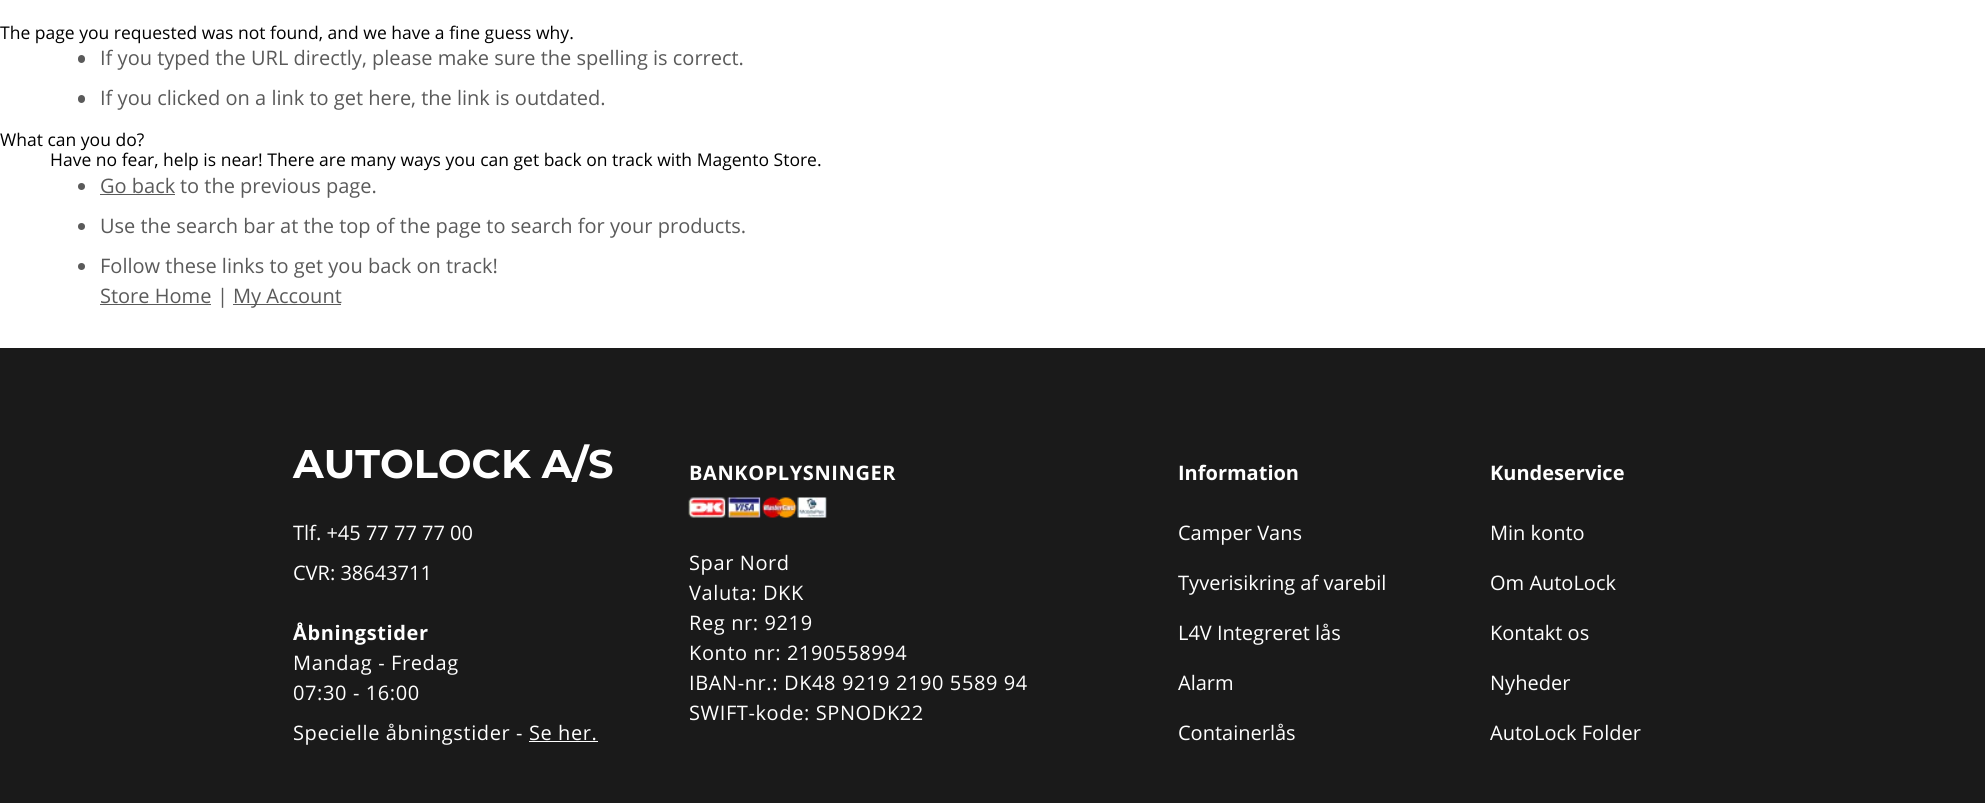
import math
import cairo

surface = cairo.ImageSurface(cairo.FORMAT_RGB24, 1985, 803)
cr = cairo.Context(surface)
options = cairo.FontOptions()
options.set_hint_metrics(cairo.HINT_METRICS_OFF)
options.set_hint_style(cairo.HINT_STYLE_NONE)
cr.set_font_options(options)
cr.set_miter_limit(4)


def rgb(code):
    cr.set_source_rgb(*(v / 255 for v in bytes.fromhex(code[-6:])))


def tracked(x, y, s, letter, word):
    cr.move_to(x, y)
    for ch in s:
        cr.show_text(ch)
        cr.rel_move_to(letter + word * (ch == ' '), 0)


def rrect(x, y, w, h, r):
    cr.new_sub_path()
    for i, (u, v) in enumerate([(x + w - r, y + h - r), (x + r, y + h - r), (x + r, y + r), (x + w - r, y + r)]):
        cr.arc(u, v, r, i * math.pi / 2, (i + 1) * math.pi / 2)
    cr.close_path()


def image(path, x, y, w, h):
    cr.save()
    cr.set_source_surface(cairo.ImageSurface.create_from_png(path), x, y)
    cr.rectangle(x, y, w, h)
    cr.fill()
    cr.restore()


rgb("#ffffff")
cr.paint()
rgb("#5a5a5a")
rrect(78, 55, 7, 8, 3.5)
cr.fill()
rrect(78, 95, 7, 8, 3.5)
cr.fill()
cr.arc(81.5, 186.5, 3.5, 0, 2 * math.pi)
cr.fill()
cr.rectangle(100, 194, 75, 1)
cr.fill()
cr.arc(81.5, 226.5, 3.5, 0, 2 * math.pi)
cr.fill()
cr.arc(81.5, 266.5, 3.5, 0, 2 * math.pi)
cr.fill()
for x, y, w, h, color in [
    (100, 304, 111, 1, "#5a5a5a"),
    (233, 304, 108, 1, "#5a5a5a"),
    (0, 348, 1985, 455, "#1a1a1a"),
    (529, 741, 69, 1, "#ffffff"),
]:
    rgb(color)
    cr.rectangle(x, y, w, h)
    cr.fill()
image("img/1.png", 688, 497, 139, 21)
cr.select_font_face("Open Sans")
cr.set_font_size(17.5)
rgb("#000000")
cr.move_to(0, 39)
cr.show_text("The page you requested was not found, and we have a fine guess why.")
cr.set_font_size(20)
rgb("#5a5a5a")
cr.move_to(100, 65)
cr.show_text("If you typed the URL directly, please make sure the spelling is correct.")
cr.move_to(100, 105)
cr.show_text("If you clicked on a link to get here, the link is outdated.")
cr.set_font_size(17.5)
rgb("#000000")
cr.move_to(0, 146)
cr.show_text("What can you do?")
cr.move_to(50, 166)
cr.show_text("Have no fear, help is near! There are many ways you can get back on track with Magento Store.")
cr.set_font_size(20)
rgb("#5a5a5a")
for x, y, s in [
    (100, 193, "Go back"),
    (180, 193, "to the previous page."),
    (100, 233, "Use the search bar at the top of the page to search for your products."),
    (100, 273, "Follow these links to get you back on track!"),
    (100, 303, "Store Home"),
    (217, 303, "|"),
    (233, 303, "My Account"),
]:
    cr.move_to(x, y)
    cr.show_text(s)
cr.select_font_face("Montserrat", cairo.FONT_SLANT_NORMAL, cairo.FONT_WEIGHT_BOLD)
cr.set_font_size(40)
rgb("#ffffff")
cr.move_to(293, 478)
cr.show_text("AUTOLOCK A/S")
cr.select_font_face("Open Sans")
cr.set_font_size(20)
cr.move_to(293, 540)
cr.show_text("Tlf. +45 77 77 77 00")
cr.move_to(293, 580)
cr.show_text("CVR: 38643711")
cr.select_font_face("Open Sans", cairo.FONT_SLANT_NORMAL, cairo.FONT_WEIGHT_BOLD)
tracked(293, 640, "Åbningstider", 0.6, 0)
cr.select_font_face("Open Sans")
for x, y, s in [
    (293, 670, "Mandag - Fredag"),
    (293, 700, "07:30 - 16:00"),
    (293, 740, "Specielle åbningstider - Se her."),
]:
    tracked(x, y, s, 0.6, 0)
cr.select_font_face("Open Sans", cairo.FONT_SLANT_NORMAL, cairo.FONT_WEIGHT_BOLD)
tracked(689, 480, "BANKOPLYSNINGER", 0.6, 0)
cr.select_font_face("Open Sans")
for x, y, s in [
    (689, 570, "Spar Nord"),
    (689, 600, "Valuta: DKK"),
    (689, 630, "Reg nr: 9219"),
    (689, 660, "Konto nr: 2190558994"),
    (689, 690, "IBAN-nr.: DK48 9219 2190 5589 94"),
    (689, 720, "SWIFT-kode: SPNODK22"),
]:
    tracked(x, y, s, 0.6, 0)
cr.select_font_face("Open Sans", cairo.FONT_SLANT_NORMAL, cairo.FONT_WEIGHT_BOLD)
cr.move_to(1178, 480)
cr.show_text("Information")
cr.select_font_face("Open Sans")
for x, y, s in [
    (1178, 540, "Camper Vans"),
    (1178, 590, "Tyverisikring af varebil"),
    (1178, 640, "L4V Integreret lås"),
    (1178, 690, "Alarm"),
    (1178, 740, "Containerlås"),
]:
    cr.move_to(x, y)
    cr.show_text(s)
cr.select_font_face("Open Sans", cairo.FONT_SLANT_NORMAL, cairo.FONT_WEIGHT_BOLD)
cr.move_to(1490, 480)
cr.show_text("Kundeservice")
cr.select_font_face("Open Sans")
for x, y, s in [
    (1490, 540, "Min konto"),
    (1490, 590, "Om AutoLock"),
    (1490, 640, "Kontakt os"),
    (1490, 690, "Nyheder"),
    (1490, 740, "AutoLock Folder"),
]:
    cr.move_to(x, y)
    cr.show_text(s)
surface.write_to_png("page.png")
